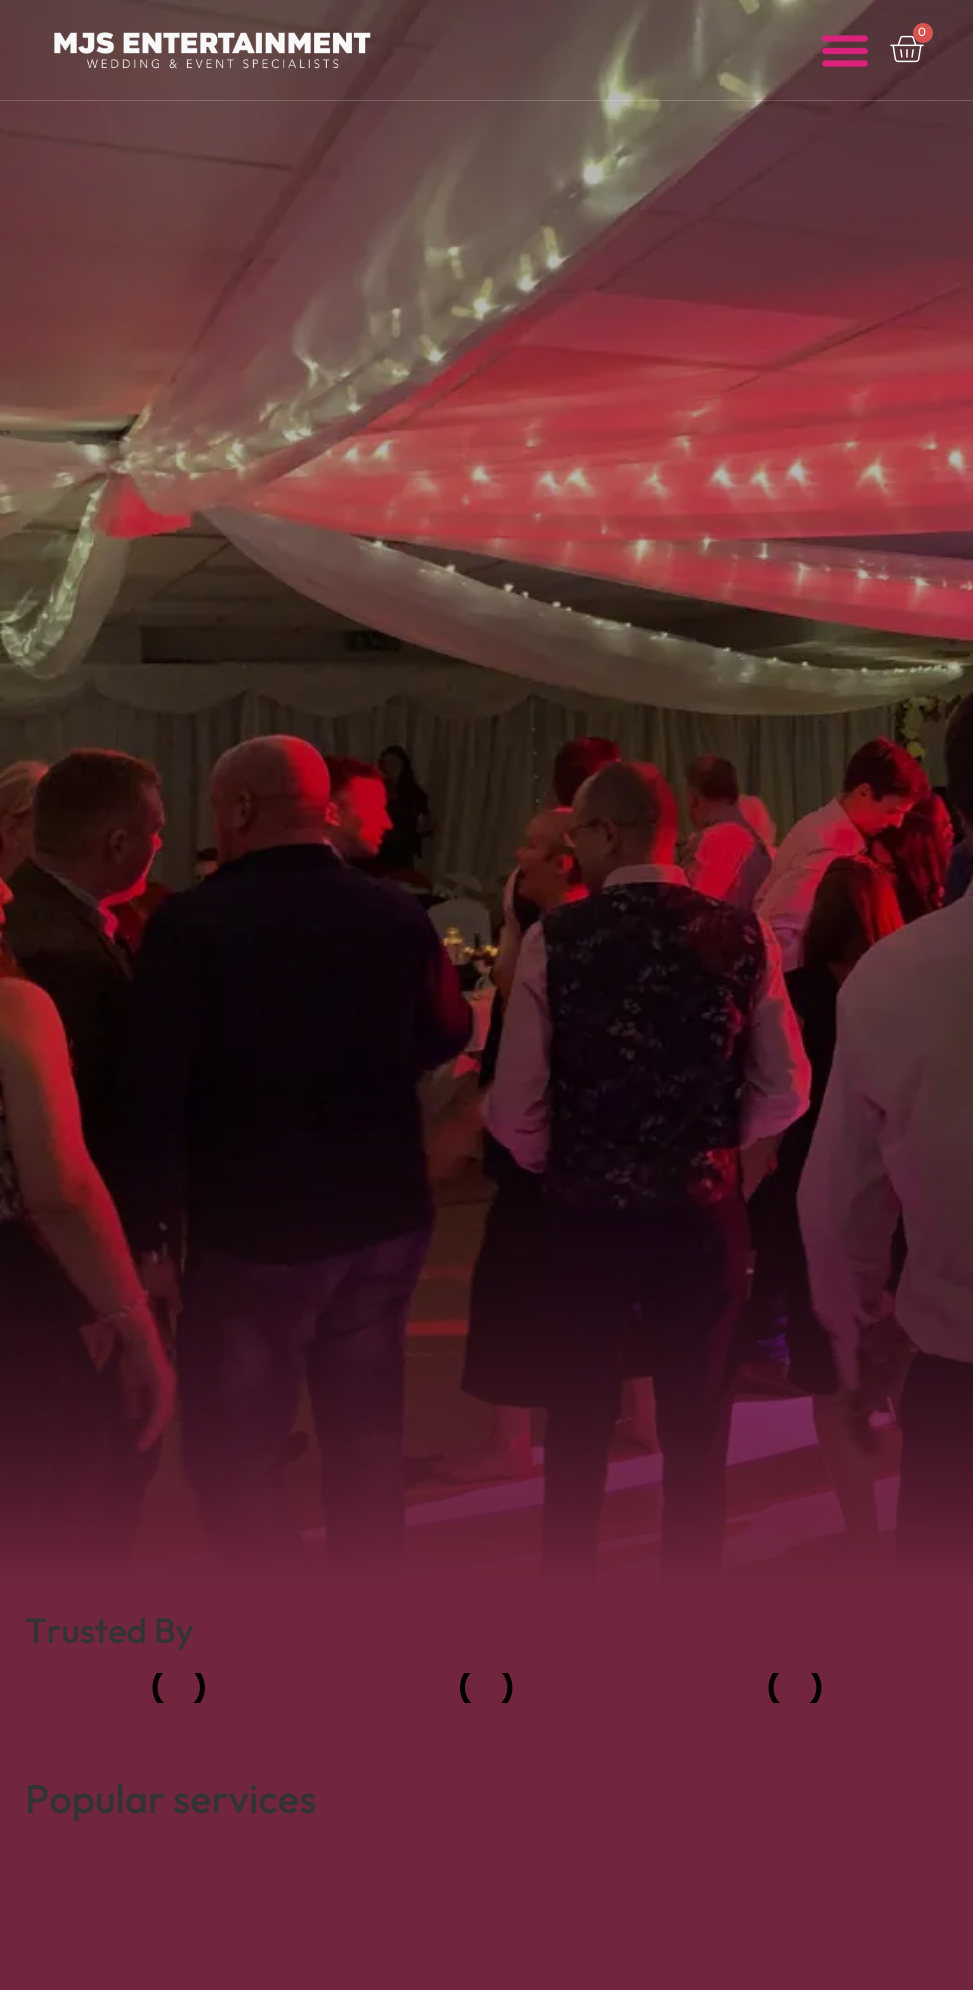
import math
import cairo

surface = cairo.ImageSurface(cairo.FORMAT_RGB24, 973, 1990)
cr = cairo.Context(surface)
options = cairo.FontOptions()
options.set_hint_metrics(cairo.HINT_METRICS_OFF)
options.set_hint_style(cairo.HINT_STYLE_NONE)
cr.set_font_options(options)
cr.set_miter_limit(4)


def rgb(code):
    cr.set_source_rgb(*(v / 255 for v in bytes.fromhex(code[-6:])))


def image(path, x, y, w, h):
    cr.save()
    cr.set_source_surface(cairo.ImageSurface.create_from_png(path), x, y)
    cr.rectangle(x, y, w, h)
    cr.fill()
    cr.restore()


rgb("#71263d")
cr.paint()
image("img/4.png", 0, 0, 973, 1584)
gradient = cairo.LinearGradient(487, 0, 487, 1588)
gradient.add_color_stop_rgba(0.7, 0, 0, 0, 0.28)
gradient.add_color_stop_rgba(1, 0.443, 0.149, 0.239, 1)
cr.set_source(gradient)
cr.rectangle(0, 0, 973, 1584)
cr.fill()
cr.set_source_rgba(1, 1, 1, 0.2)
cr.rectangle(0, 100, 973, 1)
cr.fill()
image("img/1.png", 54, 32, 317, 37)
image("img/2.png", 890, 35, 34, 28)
rgb("#d9534f")
cr.arc(923, 33, 10, 0, 2 * math.pi)
cr.fill()
image("img/3.png", 822, 35, 46, 32)
cr.save()
cr.rectangle(25, 1673, 924, 30)
cr.clip()
cr.new_path()
cr.move_to(195.5, 1670.5)
cr.curve_to(201, 1676.5, 203.5, 1684.5, 202, 1692)
cr.curve_to(196.5, 1720, 155, 1716, 155, 1687.5)
cr.curve_to(155, 1681, 157.5, 1675, 162, 1670.5)
rgb("#000000")
cr.set_line_width(5)
cr.stroke()
cr.new_path()
cr.move_to(503, 1670.5)
cr.curve_to(508.5, 1676.5, 511, 1684.5, 509.5, 1692)
cr.curve_to(504, 1720, 462.5, 1716, 462.5, 1687.5)
cr.curve_to(462.5, 1681, 465, 1675, 469.5, 1670.5)
cr.stroke()
cr.new_path()
cr.move_to(812, 1670.5)
cr.curve_to(817.5, 1676.5, 820, 1684.5, 818.5, 1692)
cr.curve_to(812.5, 1720, 771, 1716, 771, 1687.5)
cr.curve_to(771, 1681, 774, 1675, 778, 1670.5)
cr.stroke()
cr.restore()
cr.select_font_face("Outfit")
cr.set_font_size(12)
rgb("#ffffff")
cr.move_to(918, 36)
cr.show_text("0")
cr.select_font_face("Outfit Medium")
cr.set_font_size(35)
rgb("#333333")
cr.move_to(25, 1643)
cr.show_text("Trusted By")
cr.set_font_size(40)
cr.move_to(25, 1813)
cr.show_text("Popular services")
surface.write_to_png("page.png")
